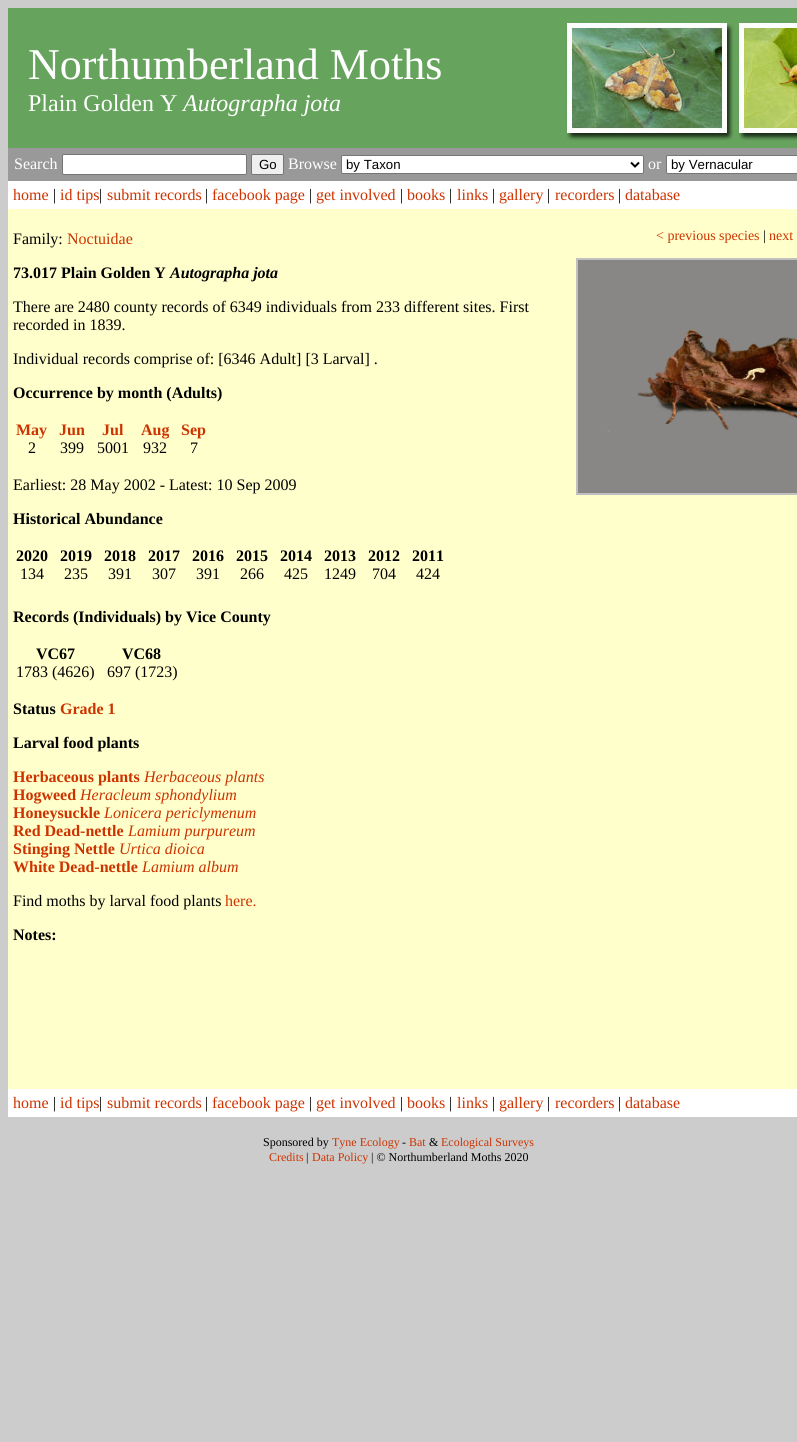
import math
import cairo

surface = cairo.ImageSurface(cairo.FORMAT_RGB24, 797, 1442)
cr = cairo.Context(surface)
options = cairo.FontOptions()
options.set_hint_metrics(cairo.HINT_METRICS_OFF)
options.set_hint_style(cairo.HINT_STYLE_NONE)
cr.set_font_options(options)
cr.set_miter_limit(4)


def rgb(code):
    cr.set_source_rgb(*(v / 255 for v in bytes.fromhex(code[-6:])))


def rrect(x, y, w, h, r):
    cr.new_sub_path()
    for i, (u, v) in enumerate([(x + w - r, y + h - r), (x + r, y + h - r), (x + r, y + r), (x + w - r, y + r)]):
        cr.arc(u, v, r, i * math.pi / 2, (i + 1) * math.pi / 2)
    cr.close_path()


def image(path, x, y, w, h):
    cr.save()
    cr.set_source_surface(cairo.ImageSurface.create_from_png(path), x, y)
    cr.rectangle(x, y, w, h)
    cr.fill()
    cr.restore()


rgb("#cccccc")
cr.paint()
image("img/1.png", 8, 8, 789, 140)
rgb("#999999")
cr.rectangle(8, 148, 789, 33)
cr.fill()
rgb("#ffffff")
rrect(62.5, 154.5, 184, 20, 1.5)
cr.fill_preserve()
rgb("#767676")
cr.set_line_width(1)
cr.stroke()
rgb("#efefef")
rrect(251.5, 154.5, 32, 20, 1.5)
cr.fill_preserve()
rgb("#767676")
cr.stroke()
rgb("#ffffff")
rrect(341.5, 155.5, 302, 18, 1.5)
cr.fill_preserve()
rgb("#767676")
cr.stroke()
cr.new_path()
cr.move_to(631, 162.5)
cr.line_to(635, 166.5)
cr.line_to(639, 162.5)
rgb("#000000")
cr.set_line_width(2)
cr.stroke()
rgb("#ffffff")
rrect(666.5, 155.5, 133, 18, 1.5)
cr.fill_preserve()
rgb("#767676")
cr.set_line_width(1)
cr.stroke()
rgb("#ffffff")
cr.rectangle(8, 181, 789, 28)
cr.fill()
rgb("#ffffcc")
cr.rectangle(8, 209, 789, 880)
cr.fill()
cr.rectangle(577, 259, 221, 235)
rgb("#c0c0c0")
cr.set_line_width(2)
cr.stroke()
image("img/2.png", 578, 260, 219, 233)
rgb("#ffffff")
cr.rectangle(8, 1089, 789, 28)
cr.fill()
cr.select_font_face("Liberation Serif")
cr.set_font_size(44)
cr.move_to(28, 79)
cr.show_text("Northumberland Moths")
cr.set_font_size(24)
cr.move_to(28, 111)
cr.show_text("Plain Golden Y")
cr.select_font_face("Liberation Serif", cairo.FONT_SLANT_ITALIC)
cr.move_to(183, 111)
cr.show_text("Autographa jota")
cr.select_font_face("Liberation Serif")
cr.set_font_size(16)
cr.move_to(14, 169)
cr.show_text("Search")
cr.select_font_face("Liberation Sans")
cr.set_font_size(13.25)
rgb("#000000")
cr.move_to(259, 169)
cr.show_text("Go")
cr.select_font_face("Liberation Serif")
cr.set_font_size(16)
rgb("#ffffff")
cr.move_to(288, 169)
cr.show_text("Browse")
cr.select_font_face("Liberation Sans")
cr.set_font_size(13.25)
rgb("#000000")
cr.move_to(346, 169)
cr.show_text("by Taxon")
cr.select_font_face("Liberation Serif")
cr.set_font_size(16)
rgb("#ffffff")
cr.move_to(648, 169)
cr.show_text("or")
cr.select_font_face("Liberation Sans")
cr.set_font_size(13.25)
rgb("#000000")
cr.move_to(671, 169)
cr.show_text("by Vernacular")
cr.select_font_face("Liberation Serif")
cr.set_font_size(16)
rgb("#cc3300")
cr.move_to(13, 200)
cr.show_text("home")
rgb("#000000")
cr.move_to(53, 200)
cr.show_text("|")
rgb("#cc3300")
cr.move_to(60, 200)
cr.show_text("id tips")
rgb("#000000")
cr.move_to(99, 200)
cr.show_text("|")
rgb("#cc3300")
cr.move_to(107, 200)
cr.show_text("submit records")
rgb("#000000")
cr.move_to(205, 200)
cr.show_text("|")
rgb("#cc3300")
cr.move_to(212, 200)
cr.show_text("facebook page")
rgb("#000000")
cr.move_to(309, 200)
cr.show_text("|")
rgb("#cc3300")
cr.move_to(316, 200)
cr.show_text("get involved")
rgb("#000000")
cr.move_to(400, 200)
cr.show_text("|")
rgb("#cc3300")
cr.move_to(407, 200)
cr.show_text("books")
rgb("#000000")
cr.move_to(449, 200)
cr.show_text("|")
rgb("#cc3300")
cr.move_to(457, 200)
cr.show_text("links")
rgb("#000000")
cr.move_to(492, 200)
cr.show_text("|")
rgb("#cc3300")
cr.move_to(499, 200)
cr.show_text("gallery")
rgb("#000000")
cr.move_to(547, 200)
cr.show_text("|")
rgb("#cc3300")
cr.move_to(555, 200)
cr.show_text("recorders")
rgb("#000000")
cr.move_to(618, 200)
cr.show_text("|")
rgb("#cc3300")
cr.move_to(625, 200)
cr.show_text("database")
rgb("#000000")
cr.move_to(13, 244)
cr.show_text("Family:")
rgb("#cc3300")
cr.move_to(67, 244)
cr.show_text("Noctuidae")
cr.select_font_face("Liberation Serif", cairo.FONT_SLANT_NORMAL, cairo.FONT_WEIGHT_BOLD)
rgb("#000000")
cr.move_to(13, 278)
cr.show_text("73.017 Plain Golden Y")
cr.select_font_face("Liberation Serif", cairo.FONT_SLANT_ITALIC, cairo.FONT_WEIGHT_BOLD)
cr.move_to(170, 278)
cr.show_text("Autographa jota")
cr.select_font_face("Liberation Serif")
for x, y, s in [
    (13, 312, "There are 2480 county records of 6349 individuals from 233 different sites. First"),
    (13, 330, "recorded in 1839."),
    (13, 364, "Individual records comprise of: [6346 Adult] [3 Larval] ."),
]:
    cr.move_to(x, y)
    cr.show_text(s)
cr.select_font_face("Liberation Serif", cairo.FONT_SLANT_NORMAL, cairo.FONT_WEIGHT_BOLD)
cr.move_to(13, 398)
cr.show_text("Occurrence by month (Adults)")
rgb("#cc3300")
cr.move_to(16, 435)
cr.show_text("May")
cr.select_font_face("Liberation Serif")
rgb("#000000")
cr.move_to(28, 453)
cr.show_text("2")
cr.select_font_face("Liberation Serif", cairo.FONT_SLANT_NORMAL, cairo.FONT_WEIGHT_BOLD)
rgb("#cc3300")
cr.move_to(59, 435)
cr.show_text("Jun")
cr.select_font_face("Liberation Serif")
rgb("#000000")
cr.move_to(60, 453)
cr.show_text("399")
cr.select_font_face("Liberation Serif", cairo.FONT_SLANT_NORMAL, cairo.FONT_WEIGHT_BOLD)
rgb("#cc3300")
cr.move_to(102, 435)
cr.show_text("Jul")
cr.select_font_face("Liberation Serif")
rgb("#000000")
cr.move_to(97, 453)
cr.show_text("5001")
cr.select_font_face("Liberation Serif", cairo.FONT_SLANT_NORMAL, cairo.FONT_WEIGHT_BOLD)
rgb("#cc3300")
cr.move_to(141, 435)
cr.show_text("Aug")
cr.select_font_face("Liberation Serif")
rgb("#000000")
cr.move_to(143, 453)
cr.show_text("932")
cr.select_font_face("Liberation Serif", cairo.FONT_SLANT_NORMAL, cairo.FONT_WEIGHT_BOLD)
rgb("#cc3300")
cr.move_to(181, 435)
cr.show_text("Sep")
cr.select_font_face("Liberation Serif")
rgb("#000000")
cr.move_to(190, 453)
cr.show_text("7")
cr.move_to(13, 490)
cr.show_text("Earliest: 28 May 2002 - Latest: 10 Sep 2009")
cr.select_font_face("Liberation Serif", cairo.FONT_SLANT_NORMAL, cairo.FONT_WEIGHT_BOLD)
cr.move_to(13, 524)
cr.show_text("Historical Abundance")
cr.move_to(16, 561)
cr.show_text("2020")
cr.select_font_face("Liberation Serif")
cr.move_to(20, 579)
cr.show_text("134")
cr.select_font_face("Liberation Serif", cairo.FONT_SLANT_NORMAL, cairo.FONT_WEIGHT_BOLD)
cr.move_to(60, 561)
cr.show_text("2019")
cr.select_font_face("Liberation Serif")
cr.move_to(64, 579)
cr.show_text("235")
cr.select_font_face("Liberation Serif", cairo.FONT_SLANT_NORMAL, cairo.FONT_WEIGHT_BOLD)
cr.move_to(104, 561)
cr.show_text("2018")
cr.select_font_face("Liberation Serif")
cr.move_to(108, 579)
cr.show_text("391")
cr.select_font_face("Liberation Serif", cairo.FONT_SLANT_NORMAL, cairo.FONT_WEIGHT_BOLD)
cr.move_to(148, 561)
cr.show_text("2017")
cr.select_font_face("Liberation Serif")
cr.move_to(152, 579)
cr.show_text("307")
cr.select_font_face("Liberation Serif", cairo.FONT_SLANT_NORMAL, cairo.FONT_WEIGHT_BOLD)
cr.move_to(192, 561)
cr.show_text("2016")
cr.select_font_face("Liberation Serif")
cr.move_to(196, 579)
cr.show_text("391")
cr.select_font_face("Liberation Serif", cairo.FONT_SLANT_NORMAL, cairo.FONT_WEIGHT_BOLD)
cr.move_to(236, 561)
cr.show_text("2015")
cr.select_font_face("Liberation Serif")
cr.move_to(240, 579)
cr.show_text("266")
cr.select_font_face("Liberation Serif", cairo.FONT_SLANT_NORMAL, cairo.FONT_WEIGHT_BOLD)
cr.move_to(280, 561)
cr.show_text("2014")
cr.select_font_face("Liberation Serif")
cr.move_to(284, 579)
cr.show_text("425")
cr.select_font_face("Liberation Serif", cairo.FONT_SLANT_NORMAL, cairo.FONT_WEIGHT_BOLD)
cr.move_to(324, 561)
cr.show_text("2013")
cr.select_font_face("Liberation Serif")
cr.move_to(324, 579)
cr.show_text("1249")
cr.select_font_face("Liberation Serif", cairo.FONT_SLANT_NORMAL, cairo.FONT_WEIGHT_BOLD)
cr.move_to(368, 561)
cr.show_text("2012")
cr.select_font_face("Liberation Serif")
cr.move_to(372, 579)
cr.show_text("704")
cr.select_font_face("Liberation Serif", cairo.FONT_SLANT_NORMAL, cairo.FONT_WEIGHT_BOLD)
cr.move_to(412, 561)
cr.show_text("2011")
cr.select_font_face("Liberation Serif")
cr.move_to(416, 579)
cr.show_text("424")
cr.select_font_face("Liberation Serif", cairo.FONT_SLANT_NORMAL, cairo.FONT_WEIGHT_BOLD)
cr.move_to(13, 622)
cr.show_text("Records (Individuals) by Vice County")
cr.move_to(36, 659)
cr.show_text("VC67")
cr.select_font_face("Liberation Serif")
cr.move_to(16, 677)
cr.show_text("1783 (4626)")
cr.select_font_face("Liberation Serif", cairo.FONT_SLANT_NORMAL, cairo.FONT_WEIGHT_BOLD)
cr.move_to(122, 659)
cr.show_text("VC68")
cr.select_font_face("Liberation Serif")
cr.move_to(107, 677)
cr.show_text("697 (1723)")
cr.select_font_face("Liberation Serif", cairo.FONT_SLANT_NORMAL, cairo.FONT_WEIGHT_BOLD)
cr.move_to(13, 714)
cr.show_text("Status")
rgb("#cc3300")
cr.move_to(60, 714)
cr.show_text("Grade 1")
rgb("#000000")
cr.move_to(13, 748)
cr.show_text("Larval food plants")
rgb("#cc3300")
cr.move_to(13, 782)
cr.show_text("Herbaceous plants")
cr.select_font_face("Liberation Serif", cairo.FONT_SLANT_ITALIC)
cr.move_to(144, 782)
cr.show_text("Herbaceous plants")
cr.select_font_face("Liberation Serif", cairo.FONT_SLANT_NORMAL, cairo.FONT_WEIGHT_BOLD)
cr.move_to(13, 800)
cr.show_text("Hogweed")
cr.select_font_face("Liberation Serif", cairo.FONT_SLANT_ITALIC)
cr.move_to(80, 800)
cr.show_text("Heracleum sphondylium")
cr.select_font_face("Liberation Serif", cairo.FONT_SLANT_NORMAL, cairo.FONT_WEIGHT_BOLD)
cr.move_to(13, 818)
cr.show_text("Honeysuckle")
cr.select_font_face("Liberation Serif", cairo.FONT_SLANT_ITALIC)
cr.move_to(104, 818)
cr.show_text("Lonicera periclymenum")
cr.select_font_face("Liberation Serif", cairo.FONT_SLANT_NORMAL, cairo.FONT_WEIGHT_BOLD)
cr.move_to(13, 836)
cr.show_text("Red Dead-nettle")
cr.select_font_face("Liberation Serif", cairo.FONT_SLANT_ITALIC)
cr.move_to(128, 836)
cr.show_text("Lamium purpureum")
cr.select_font_face("Liberation Serif", cairo.FONT_SLANT_NORMAL, cairo.FONT_WEIGHT_BOLD)
cr.move_to(13, 854)
cr.show_text("Stinging Nettle")
cr.select_font_face("Liberation Serif", cairo.FONT_SLANT_ITALIC)
cr.move_to(119, 854)
cr.show_text("Urtica dioica")
cr.select_font_face("Liberation Serif", cairo.FONT_SLANT_NORMAL, cairo.FONT_WEIGHT_BOLD)
cr.move_to(13, 872)
cr.show_text("White Dead-nettle")
cr.select_font_face("Liberation Serif", cairo.FONT_SLANT_ITALIC)
cr.move_to(142, 872)
cr.show_text("Lamium album")
cr.select_font_face("Liberation Serif")
rgb("#000000")
cr.move_to(13, 906)
cr.show_text("Find moths by larval food plants")
rgb("#cc3300")
cr.move_to(225, 906)
cr.show_text("here.")
cr.select_font_face("Liberation Serif", cairo.FONT_SLANT_NORMAL, cairo.FONT_WEIGHT_BOLD)
rgb("#000000")
cr.move_to(13, 940)
cr.show_text("Notes:")
cr.select_font_face("Liberation Serif")
cr.set_font_size(14)
rgb("#cc3300")
cr.move_to(656, 240)
cr.show_text("< previous species")
rgb("#000000")
cr.move_to(763, 240)
cr.show_text("|")
rgb("#cc3300")
cr.move_to(769, 240)
cr.show_text("next")
cr.set_font_size(16)
cr.move_to(13, 1108)
cr.show_text("home")
rgb("#000000")
cr.move_to(53, 1108)
cr.show_text("|")
rgb("#cc3300")
cr.move_to(60, 1108)
cr.show_text("id tips")
rgb("#000000")
cr.move_to(99, 1108)
cr.show_text("|")
rgb("#cc3300")
cr.move_to(107, 1108)
cr.show_text("submit records")
rgb("#000000")
cr.move_to(205, 1108)
cr.show_text("|")
rgb("#cc3300")
cr.move_to(212, 1108)
cr.show_text("facebook page")
rgb("#000000")
cr.move_to(309, 1108)
cr.show_text("|")
rgb("#cc3300")
cr.move_to(316, 1108)
cr.show_text("get involved")
rgb("#000000")
cr.move_to(400, 1108)
cr.show_text("|")
rgb("#cc3300")
cr.move_to(407, 1108)
cr.show_text("books")
rgb("#000000")
cr.move_to(449, 1108)
cr.show_text("|")
rgb("#cc3300")
cr.move_to(457, 1108)
cr.show_text("links")
rgb("#000000")
cr.move_to(492, 1108)
cr.show_text("|")
rgb("#cc3300")
cr.move_to(499, 1108)
cr.show_text("gallery")
rgb("#000000")
cr.move_to(547, 1108)
cr.show_text("|")
rgb("#cc3300")
cr.move_to(555, 1108)
cr.show_text("recorders")
rgb("#000000")
cr.move_to(618, 1108)
cr.show_text("|")
rgb("#cc3300")
cr.move_to(625, 1108)
cr.show_text("database")
cr.set_font_size(12)
rgb("#000000")
cr.move_to(263, 1146)
cr.show_text("Sponsored by")
rgb("#cc3300")
cr.move_to(332, 1146)
cr.show_text("Tyne Ecology")
rgb("#000000")
cr.move_to(402, 1146)
cr.show_text("-")
rgb("#cc3300")
cr.move_to(409, 1146)
cr.show_text("Bat")
rgb("#000000")
cr.move_to(429, 1146)
cr.show_text("&")
rgb("#cc3300")
cr.move_to(441, 1146)
cr.show_text("Ecological Surveys")
cr.move_to(269, 1161)
cr.show_text("Credits")
rgb("#000000")
cr.move_to(306, 1161)
cr.show_text("|")
rgb("#cc3300")
cr.move_to(312, 1161)
cr.show_text("Data Policy")
rgb("#000000")
cr.move_to(371, 1161)
cr.show_text("| © Northumberland Moths 2020")
surface.write_to_png("page.png")
